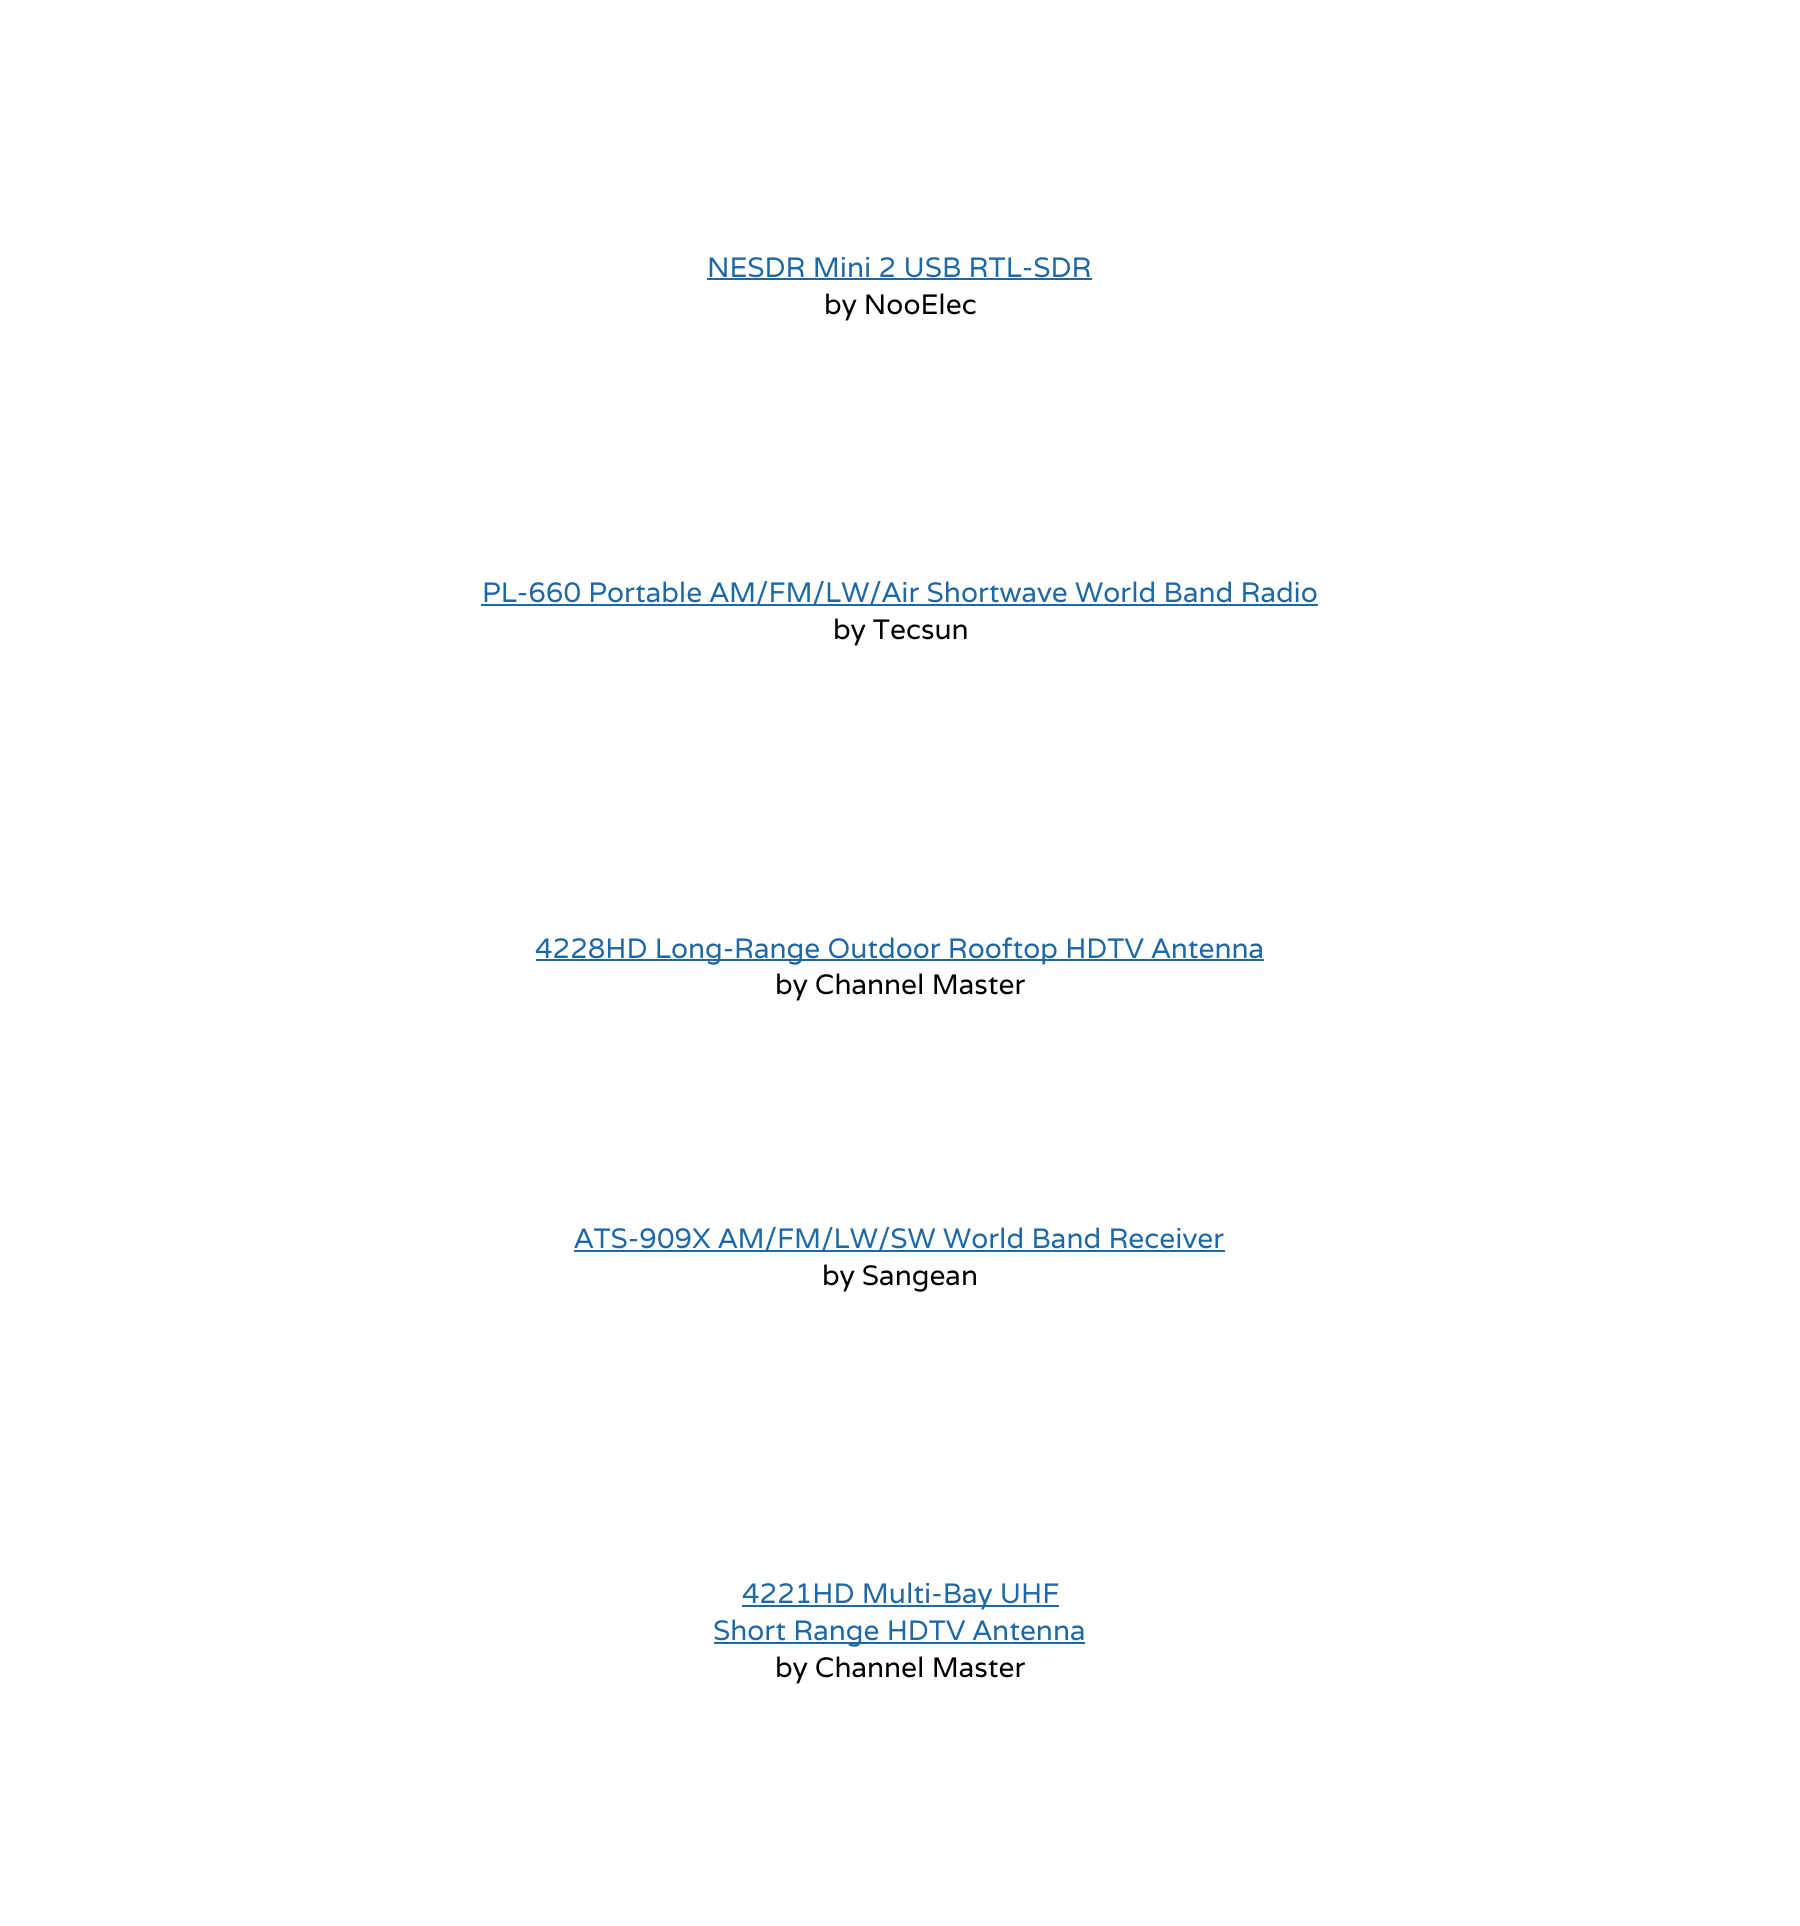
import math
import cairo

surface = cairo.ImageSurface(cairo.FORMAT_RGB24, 1800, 1926)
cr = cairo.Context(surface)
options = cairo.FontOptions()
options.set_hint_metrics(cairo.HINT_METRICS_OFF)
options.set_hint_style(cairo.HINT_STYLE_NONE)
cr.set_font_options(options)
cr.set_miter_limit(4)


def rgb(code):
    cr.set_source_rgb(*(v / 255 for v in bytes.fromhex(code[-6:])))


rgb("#ffffff")
cr.paint()
for x, y, w, h, color in [
    (707, 278, 385, 2, "#1e68a6"),
    (481, 604, 837, 2, "#1e68a6"),
    (536, 959, 728, 2, "#1e68a6"),
    (574, 1250, 651, 2, "#1e68a6"),
    (742, 1605, 317, 2, "#1e68a6"),
    (714, 1642, 371, 2, "#1e68a6"),
]:
    rgb(color)
    cr.rectangle(x, y, w, h)
    cr.fill()
cr.select_font_face("Varela")
cr.set_font_size(28)
cr.move_to(707, 277)
cr.show_text("NESDR Mini 2 USB RTL-SDR")
rgb("#000000")
cr.move_to(824, 314)
cr.show_text("by NooElec")
rgb("#1e68a6")
cr.move_to(482, 602)
cr.show_text("PL-660 Portable AM/FM/LW/Air Shortwave World Band Radio")
rgb("#000000")
cr.move_to(833, 639)
cr.show_text("by Tecsun")
rgb("#1e68a6")
cr.move_to(535, 958)
cr.show_text("4228HD Long-Range Outdoor Rooftop HDTV Antenna")
rgb("#000000")
cr.move_to(775, 994)
cr.show_text("by Channel Master")
rgb("#1e68a6")
cr.move_to(574, 1248)
cr.show_text("ATS-909X AM/FM/LW/SW World Band Receiver")
rgb("#000000")
cr.move_to(822, 1285)
cr.show_text("by Sangean")
rgb("#1e68a6")
cr.move_to(742, 1603)
cr.show_text("4221HD Multi-Bay UHF")
cr.move_to(713, 1640)
cr.show_text("Short Range HDTV Antenna")
rgb("#000000")
cr.move_to(775, 1677)
cr.show_text("by Channel Master")
surface.write_to_png("page.png")
